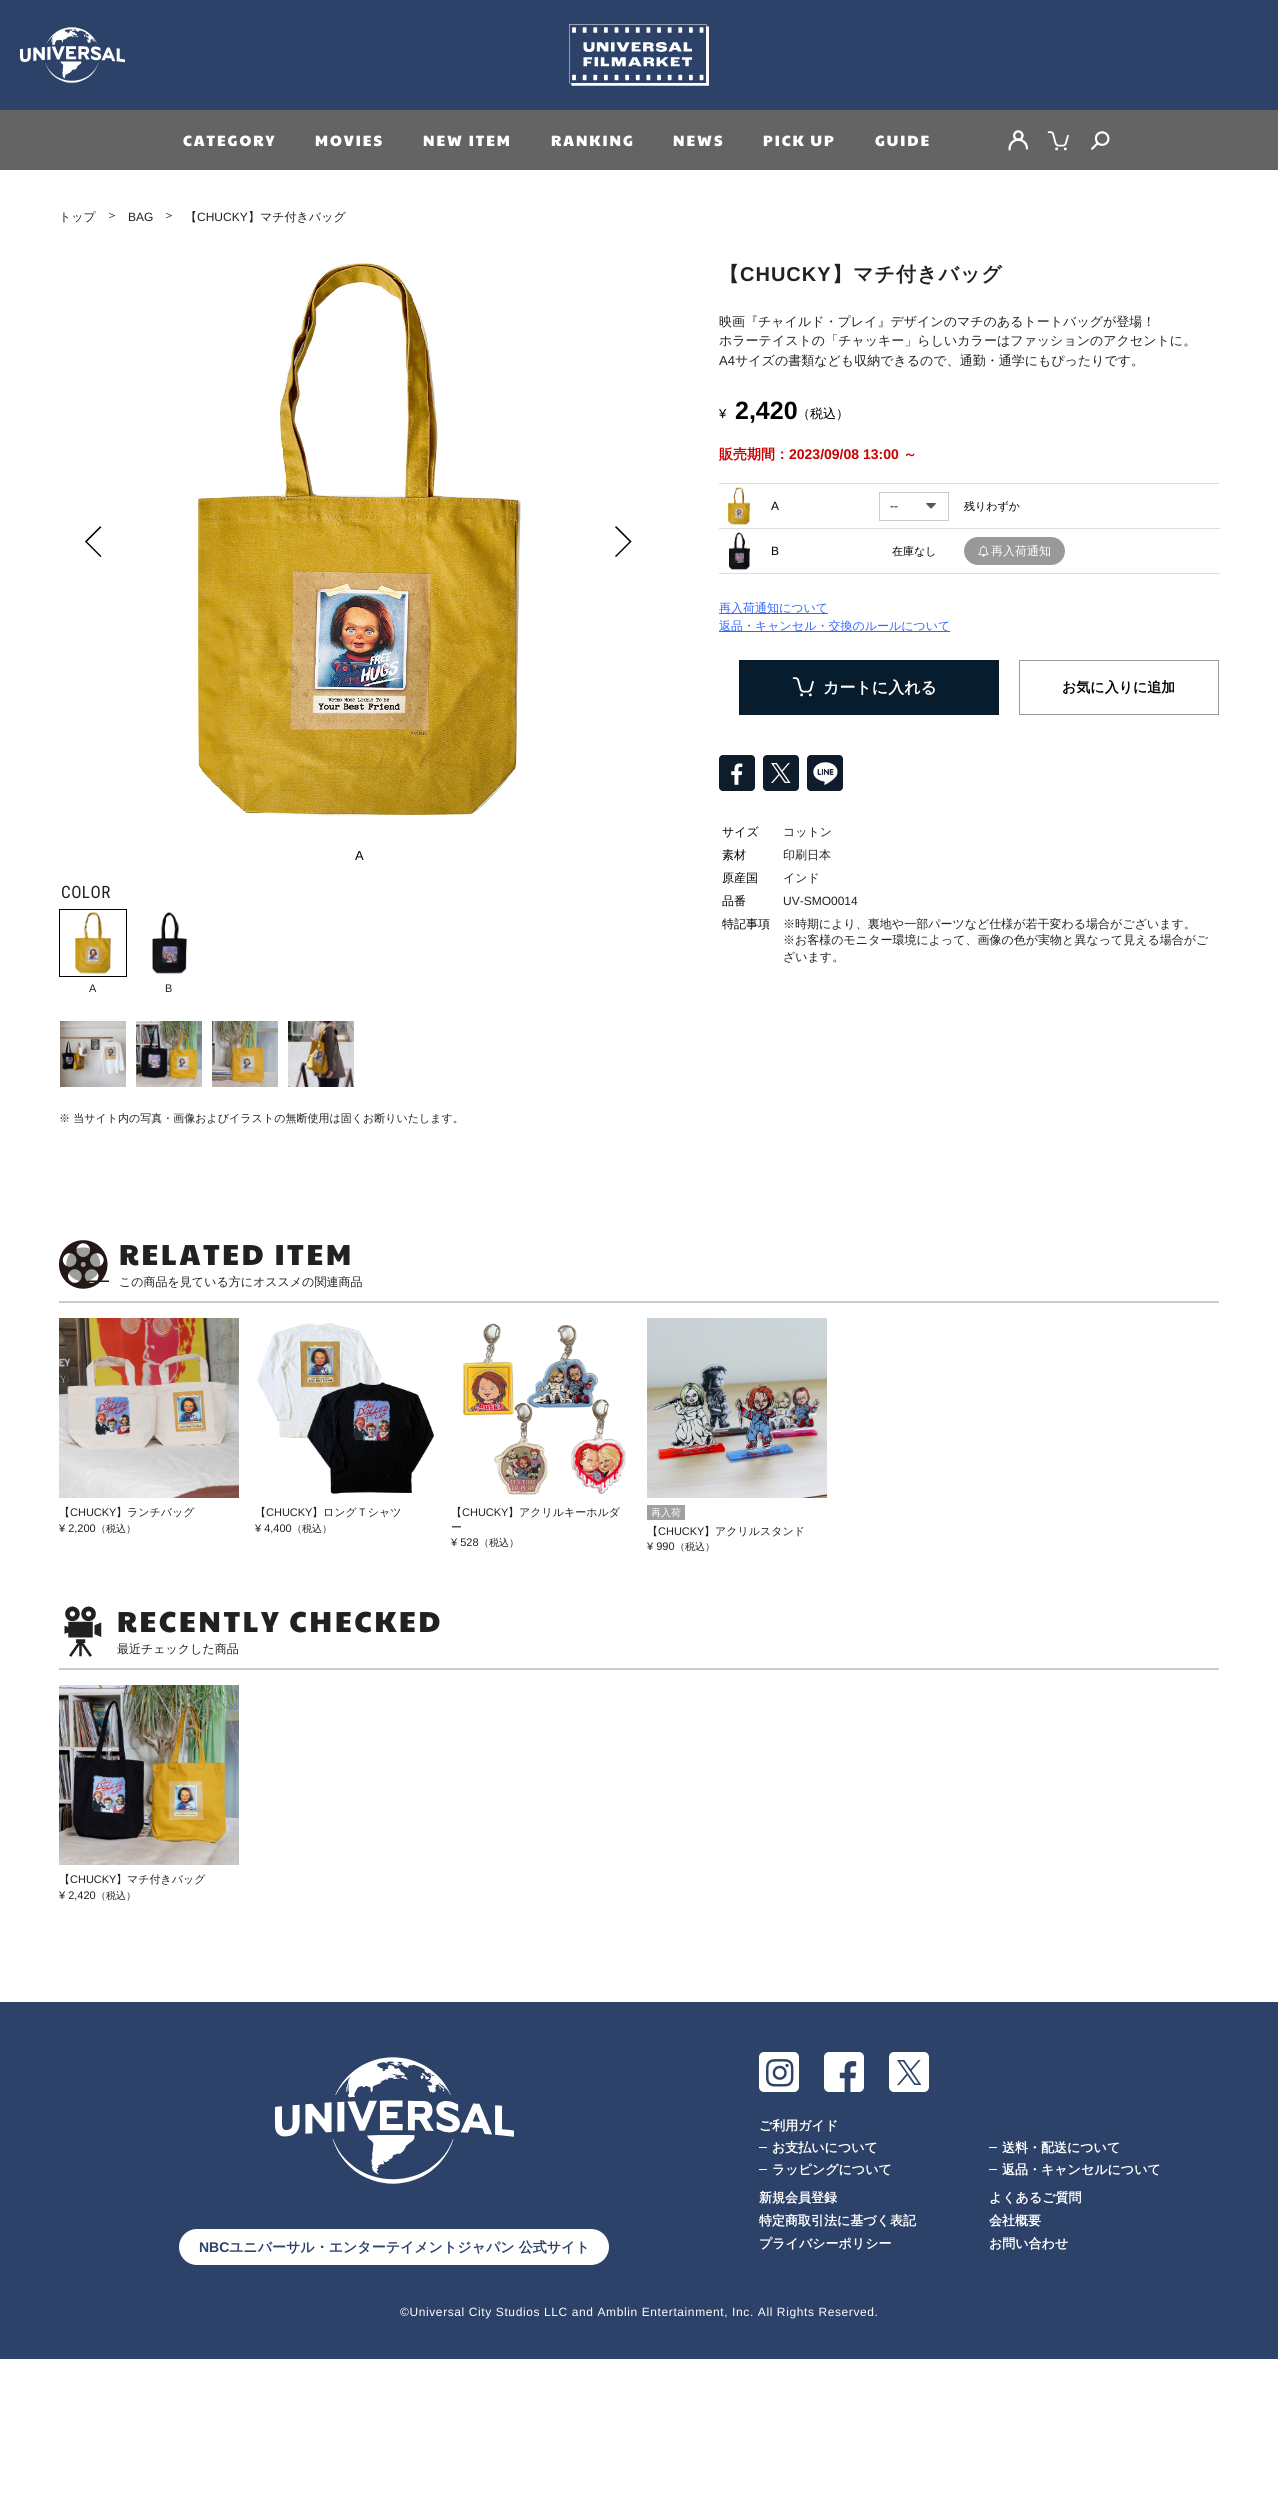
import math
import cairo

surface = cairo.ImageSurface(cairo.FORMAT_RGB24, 1278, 2516)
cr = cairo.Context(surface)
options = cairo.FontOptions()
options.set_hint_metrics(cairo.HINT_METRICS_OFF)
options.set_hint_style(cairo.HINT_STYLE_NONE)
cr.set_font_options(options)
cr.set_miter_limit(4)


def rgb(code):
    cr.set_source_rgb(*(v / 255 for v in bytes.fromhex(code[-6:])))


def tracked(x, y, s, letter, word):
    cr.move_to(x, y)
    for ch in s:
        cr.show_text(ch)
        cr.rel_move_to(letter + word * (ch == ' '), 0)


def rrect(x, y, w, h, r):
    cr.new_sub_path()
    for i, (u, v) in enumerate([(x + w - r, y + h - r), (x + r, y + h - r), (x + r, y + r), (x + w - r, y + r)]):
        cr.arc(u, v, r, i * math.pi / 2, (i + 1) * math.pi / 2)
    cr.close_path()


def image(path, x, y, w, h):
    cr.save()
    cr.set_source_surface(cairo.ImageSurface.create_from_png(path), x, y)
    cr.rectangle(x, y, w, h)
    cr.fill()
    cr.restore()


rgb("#ffffff")
cr.paint()
rgb("#2d4268")
cr.rectangle(0, 0, 1278, 110)
cr.fill()
image("img/1.png", 20, 27, 105, 56)
image("img/2.png", 569, 24, 140, 62)
rgb("#646464")
cr.rectangle(0, 110, 1278, 60)
cr.fill()
image("img/3.png", 1008, 130, 20, 21)
image("img/4.png", 1047, 131, 22, 20)
image("img/5.png", 1091, 131, 19, 19)
image("img/6.png", 85, 526, 17, 31)
image("img/7.png", 615, 526, 17, 31)
image("img/8.png", 195, 262, 326, 555)
cr.rectangle(59.5, 909.5, 67, 67)
rgb("#000000")
cr.set_line_width(1)
cr.stroke()
image("img/9.png", 75, 911, 36, 63)
image("img/10.png", 152, 912, 35, 62)
image("img/11.png", 60, 1021, 66, 66)
image("img/12.png", 136, 1021, 66, 66)
image("img/13.png", 212, 1021, 66, 66)
image("img/14.png", 288, 1021, 66, 66)
rgb("#dddddd")
cr.rectangle(719, 483, 500, 1)
cr.fill()
image("img/15.png", 728, 487, 22, 38)
image("img/16.png", 926, 503, 10, 6)
cr.rectangle(879.5, 492.5, 69, 28)
rgb("#cccccc")
cr.stroke()
rgb("#dddddd")
cr.rectangle(719, 528, 501, 1)
cr.fill()
image("img/17.png", 729, 532, 21, 38)
cr.rectangle(719, 573, 501, 1)
cr.fill()
rgb("#999999")
rrect(964, 537, 101, 28, 14)
cr.fill()
image("img/18.png", 978, 545, 11, 12)
for x, y, w, h, color in [
    (719, 613, 109, 1, "#3366ff"),
    (719, 631, 231, 1, "#3366ff"),
    (739, 660, 260, 55, "#071c2c"),
]:
    rgb(color)
    cr.rectangle(x, y, w, h)
    cr.fill()
image("img/19.png", 792, 677, 22, 20)
cr.rectangle(1019.5, 660.5, 199, 54)
rgb("#999999")
cr.stroke()
rgb("#0f1c2c")
rrect(719, 755, 36, 36, 4)
cr.fill()
image("img/20.png", 731, 763, 12, 22)
rrect(763, 755, 36, 36, 4)
cr.fill()
image("img/21.png", 771, 763, 20, 20)
rrect(807, 755, 36, 36, 4)
cr.fill()
image("img/22.png", 813, 762, 25, 23)
rgb("#cbcbcb")
cr.rectangle(59, 1301, 1160, 2)
cr.fill()
image("img/23.png", 59, 1240, 50, 49)
image("img/24.png", 59, 1318, 180, 180)
image("img/25.png", 257, 1323, 178, 171)
image("img/26.png", 462, 1323, 164, 172)
image("img/27.png", 647, 1318, 180, 180)
rgb("#a0a0a0")
cr.rectangle(647, 1505, 38, 15)
cr.fill()
rgb("#cbcbcb")
cr.rectangle(59, 1668, 1160, 2)
cr.fill()
image("img/28.png", 64, 1606, 38, 51)
image("img/29.png", 59, 1685, 180, 180)
rgb("#2d4268")
cr.rectangle(0, 2002, 1278, 357)
cr.fill()
image("img/30.png", 275, 2057, 239, 127)
rgb("#ffffff")
rrect(179, 2229, 430, 36, 18)
cr.fill()
rrect(759, 2052, 40, 40, 5)
cr.fill()
image("img/31.png", 766, 2059, 28, 28)
rrect(824, 2052, 40, 40, 5)
cr.fill()
image("img/32.png", 839, 2061, 18, 31)
rrect(889, 2052, 40, 40, 5)
cr.fill()
image("img/33.png", 897, 2060, 24, 25)
for x, y, w, h, color in [
    (759, 2147, 8, 1, "#ffffff"),
    (989, 2147, 8, 1, "#ffffff"),
    (759, 2169, 8, 1, "#ffffff"),
    (989, 2169, 8, 1, "#ffffff"),
]:
    rgb(color)
    cr.rectangle(x, y, w, h)
    cr.fill()
cr.select_font_face("Paytone One")
cr.set_font_size(15)
for x, y, s in [
    (183, 146, "CATEGORY"),
    (315, 146, "MOVIES"),
    (423, 146, "NEW ITEM"),
    (551, 146, "RANKING"),
    (673, 146, "NEWS"),
    (763, 146, "PICK UP"),
    (875, 146, "GUIDE"),
]:
    tracked(x, y, s, 2, 0)
cr.select_font_face("WenQuanYi Zen Hei Medium")
cr.set_font_size(12)
rgb("#212121")
cr.move_to(59, 221)
cr.show_text("トップ")
cr.move_to(106, 219)
cr.show_text("＞")
cr.select_font_face("Liberation Sans")
cr.move_to(128, 221)
cr.show_text("BAG")
cr.select_font_face("WenQuanYi Zen Hei Medium")
cr.move_to(163, 219)
cr.show_text("＞")
cr.move_to(185, 221)
cr.show_text("【")
cr.select_font_face("Liberation Sans")
cr.move_to(197, 221)
cr.show_text("CHUCKY")
cr.select_font_face("WenQuanYi Zen Hei Medium")
cr.move_to(248, 221)
cr.show_text("】マチ付きバッグ")
cr.select_font_face("Liberation Sans")
cr.set_font_size(13)
rgb("#000000")
cr.move_to(355, 860)
cr.show_text("A")
cr.select_font_face("Roboto Condensed")
cr.set_font_size(17)
rgb("#212121")
tracked(61, 898, "COLOR", 0.5, 0)
cr.select_font_face("Liberation Sans")
cr.set_font_size(11)
cr.move_to(89, 992)
cr.show_text("A")
cr.move_to(165, 992)
cr.show_text("B")
cr.select_font_face("WenQuanYi Zen Hei Medium")
cr.move_to(59, 1122)
cr.show_text("※ 当サイト内の写真・画像およびイラストの無断使用は固くお断りいたします。")
cr.select_font_face("WenQuanYi Zen Hei", cairo.FONT_SLANT_NORMAL, cairo.FONT_WEIGHT_BOLD)
cr.set_font_size(20)
tracked(719, 281, "【", 1, 0)
cr.select_font_face("Liberation Sans", cairo.FONT_SLANT_NORMAL, cairo.FONT_WEIGHT_BOLD)
tracked(740, 281, "CHUCKY", 1, 0)
cr.select_font_face("WenQuanYi Zen Hei", cairo.FONT_SLANT_NORMAL, cairo.FONT_WEIGHT_BOLD)
tracked(832, 281, "】マチ付きバッグ", 1, 0)
cr.select_font_face("WenQuanYi Zen Hei Medium")
cr.set_font_size(13)
cr.move_to(719, 326)
cr.show_text("映画『チャイルド・プレイ』デザインのマチのあるトートバッグが登場！")
cr.move_to(719, 345)
cr.show_text("ホラーテイストの「チャッキー」らしいカラーはファッションのアクセントに。")
cr.select_font_face("Liberation Sans")
cr.move_to(719, 365)
cr.show_text("A4")
cr.select_font_face("WenQuanYi Zen Hei Medium")
cr.move_to(735, 365)
cr.show_text("サイズの書類なども収納できるので、通勤・通学にもぴったりです。")
cr.select_font_face("Liberation Sans")
rgb("#000000")
cr.move_to(719, 418)
cr.show_text("¥")
cr.select_font_face("Liberation Sans", cairo.FONT_SLANT_NORMAL, cairo.FONT_WEIGHT_BOLD)
cr.set_font_size(25)
cr.move_to(735, 419)
cr.show_text("2,420")
cr.select_font_face("WenQuanYi Zen Hei Medium")
cr.set_font_size(13)
cr.move_to(797, 418)
cr.show_text("（税込）")
cr.select_font_face("WenQuanYi Zen Hei", cairo.FONT_SLANT_NORMAL, cairo.FONT_WEIGHT_BOLD)
cr.set_font_size(14)
rgb("#cc0000")
cr.move_to(719, 459)
cr.show_text("販売期間：")
cr.select_font_face("Liberation Sans", cairo.FONT_SLANT_NORMAL, cairo.FONT_WEIGHT_BOLD)
cr.move_to(789, 459)
cr.show_text("2023/09/08 13:00")
cr.select_font_face("WenQuanYi Zen Hei", cairo.FONT_SLANT_NORMAL, cairo.FONT_WEIGHT_BOLD)
cr.move_to(903, 459)
cr.show_text("～")
cr.select_font_face("Liberation Sans")
cr.set_font_size(12)
rgb("#000000")
cr.move_to(771, 510)
cr.show_text("A")
cr.move_to(890, 510)
cr.show_text("--")
cr.select_font_face("WenQuanYi Zen Hei Medium")
cr.set_font_size(11)
cr.move_to(964, 510)
cr.show_text("残りわずか")
cr.select_font_face("Liberation Sans")
cr.set_font_size(12)
cr.move_to(771, 555)
cr.show_text("B")
cr.select_font_face("WenQuanYi Zen Hei Medium")
cr.set_font_size(11)
cr.move_to(892, 555)
cr.show_text("在庫なし")
cr.set_font_size(12)
rgb("#ffffff")
cr.move_to(991, 555)
cr.show_text("再入荷通知")
rgb("#3366ff")
cr.move_to(719, 612)
cr.show_text("再入荷通知について")
cr.move_to(719, 630)
cr.show_text("返品・キャンセル・交換のルールについて")
cr.select_font_face("WenQuanYi Zen Hei", cairo.FONT_SLANT_NORMAL, cairo.FONT_WEIGHT_BOLD)
cr.set_font_size(16)
rgb("#ffffff")
cr.move_to(823, 693)
cr.show_text("カートに入れる")
cr.set_font_size(14)
rgb("#000000")
cr.move_to(1062, 692)
cr.show_text("お気に入りに追加")
cr.select_font_face("WenQuanYi Zen Hei Medium")
cr.set_font_size(12)
cr.move_to(722, 836)
cr.show_text("サイズ")
rgb("#212121")
cr.move_to(783, 836)
cr.show_text("コットン")
rgb("#000000")
cr.move_to(722, 859)
cr.show_text("素材")
rgb("#212121")
cr.move_to(783, 859)
cr.show_text("印刷日本")
rgb("#000000")
cr.move_to(722, 882)
cr.show_text("原産国")
rgb("#212121")
cr.move_to(783, 882)
cr.show_text("インド")
rgb("#000000")
cr.move_to(722, 905)
cr.show_text("品番")
cr.select_font_face("Liberation Sans")
rgb("#212121")
cr.move_to(783, 905)
cr.show_text("UV-SMO0014")
cr.select_font_face("WenQuanYi Zen Hei Medium")
rgb("#000000")
cr.move_to(722, 928)
cr.show_text("特記事項")
rgb("#212121")
for x, y, s in [
    (783, 928, "※時期により、裏地や一部パーツなど仕様が若干変わる場合がございます。"),
    (783, 944, "※お客様のモニター環境によって、画像の色が実物と異なって見える場合がご"),
    (783, 961, "ざいます。"),
]:
    cr.move_to(x, y)
    cr.show_text(s)
cr.select_font_face("Paytone One")
cr.set_font_size(29)
tracked(119, 1265, "RELATED ITEM", 2.9, 0)
cr.select_font_face("WenQuanYi Zen Hei Medium")
cr.set_font_size(12)
cr.move_to(119, 1286)
cr.show_text("この商品を見ている方にオススメの関連商品")
cr.set_font_size(11)
cr.move_to(59, 1516)
cr.show_text("【")
cr.select_font_face("Liberation Sans")
cr.move_to(70, 1516)
cr.show_text("CHUCKY")
cr.select_font_face("WenQuanYi Zen Hei Medium")
cr.move_to(116, 1516)
cr.show_text("】ランチバッグ")
cr.select_font_face("Liberation Sans")
cr.move_to(59, 1532)
cr.show_text("¥ 2,200")
cr.select_font_face("WenQuanYi Zen Hei Medium")
cr.set_font_size(10)
cr.move_to(96, 1532)
cr.show_text("（税込）")
cr.set_font_size(11)
cr.move_to(255, 1516)
cr.show_text("【")
cr.select_font_face("Liberation Sans")
cr.move_to(266, 1516)
cr.show_text("CHUCKY")
cr.select_font_face("WenQuanYi Zen Hei Medium")
cr.move_to(312, 1516)
cr.show_text("】ロングＴシャツ")
cr.select_font_face("Liberation Sans")
cr.move_to(255, 1532)
cr.show_text("¥ 4,400")
cr.select_font_face("WenQuanYi Zen Hei Medium")
cr.set_font_size(10)
cr.move_to(292, 1532)
cr.show_text("（税込）")
cr.set_font_size(11)
cr.move_to(451, 1516)
cr.show_text("【")
cr.select_font_face("Liberation Sans")
cr.move_to(462, 1516)
cr.show_text("CHUCKY")
cr.select_font_face("WenQuanYi Zen Hei Medium")
cr.move_to(508, 1516)
cr.show_text("】アクリルキーホルダ")
cr.move_to(451, 1531)
cr.show_text("ー")
cr.select_font_face("Liberation Sans")
cr.move_to(451, 1546)
cr.show_text("¥ 528")
cr.select_font_face("WenQuanYi Zen Hei Medium")
cr.set_font_size(10)
cr.move_to(479, 1546)
cr.show_text("（税込）")
rgb("#ffffff")
cr.move_to(651, 1516)
cr.show_text("再入荷")
cr.set_font_size(11)
rgb("#212121")
cr.move_to(647, 1535)
cr.show_text("【")
cr.select_font_face("Liberation Sans")
cr.move_to(658, 1535)
cr.show_text("CHUCKY")
cr.select_font_face("WenQuanYi Zen Hei Medium")
cr.move_to(704, 1535)
cr.show_text("】アクリルスタンド")
cr.select_font_face("Liberation Sans")
cr.move_to(647, 1550)
cr.show_text("¥ 990")
cr.select_font_face("WenQuanYi Zen Hei Medium")
cr.set_font_size(10)
cr.move_to(675, 1550)
cr.show_text("（税込）")
cr.select_font_face("Paytone One")
cr.set_font_size(29)
tracked(117, 1632, "RECENTLY CHECKED", 2.9, 0)
cr.select_font_face("WenQuanYi Zen Hei Medium")
cr.set_font_size(12)
cr.move_to(117, 1653)
cr.show_text("最近チェックした商品")
cr.set_font_size(11)
cr.move_to(59, 1883)
cr.show_text("【")
cr.select_font_face("Liberation Sans")
cr.move_to(70, 1883)
cr.show_text("CHUCKY")
cr.select_font_face("WenQuanYi Zen Hei Medium")
cr.move_to(116, 1883)
cr.show_text("】マチ付きバッグ")
cr.select_font_face("Liberation Sans")
cr.move_to(59, 1899)
cr.show_text("¥ 2,420")
cr.select_font_face("WenQuanYi Zen Hei Medium")
cr.set_font_size(10)
cr.move_to(96, 1899)
cr.show_text("（税込）")
cr.select_font_face("Liberation Sans", cairo.FONT_SLANT_NORMAL, cairo.FONT_WEIGHT_BOLD)
cr.set_font_size(14)
rgb("#2d4268")
cr.move_to(199, 2252)
cr.show_text("NBC")
cr.select_font_face("WenQuanYi Zen Hei", cairo.FONT_SLANT_NORMAL, cairo.FONT_WEIGHT_BOLD)
cr.move_to(229, 2252)
cr.show_text("ユニバーサル・エンターテイメントジャパン 公式サイト")
cr.set_font_size(13)
rgb("#ffffff")
for x, y, s in [
    (759, 2130, "ご利用ガイド"),
    (772, 2152, "お支払いについて"),
    (1002, 2152, "送料・配送について"),
    (772, 2174, "ラッピングについて"),
    (1002, 2174, "返品・キャンセルについて"),
    (759, 2202, "新規会員登録"),
    (989, 2202, "よくあるご質問"),
    (759, 2225, "特定商取引法に基づく表記"),
    (989, 2225, "会社概要"),
    (759, 2248, "プライバシーポリシー"),
    (989, 2248, "お問い合わせ"),
]:
    cr.move_to(x, y)
    cr.show_text(s)
cr.select_font_face("Liberation Sans")
cr.set_font_size(12)
tracked(400, 2316, "©Universal City Studios LLC and Amblin Entertainment, Inc. All Rights Reserved.", 0.6, 0)
surface.write_to_png("page.png")
